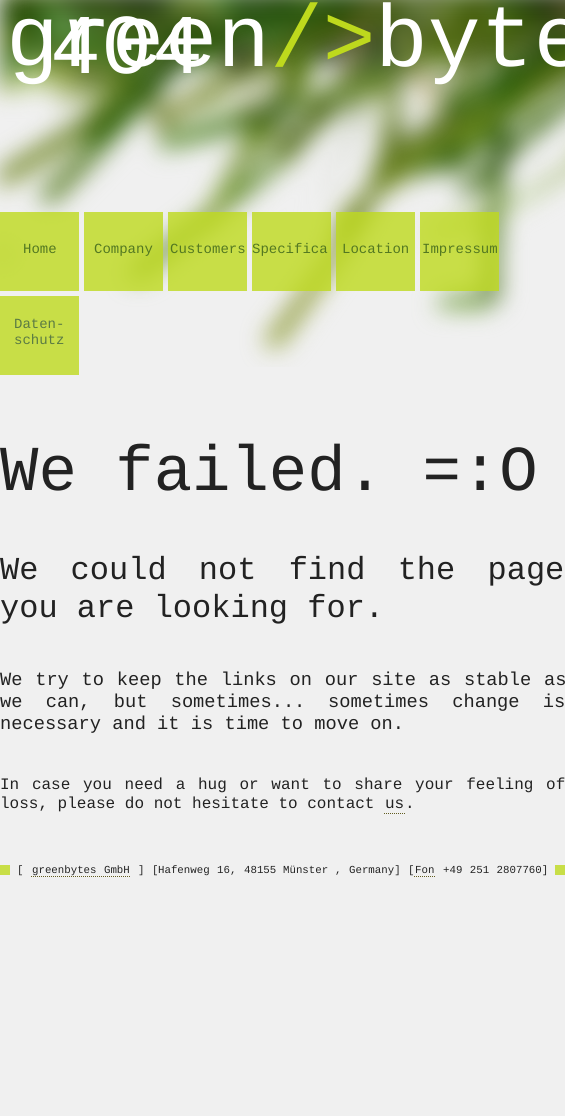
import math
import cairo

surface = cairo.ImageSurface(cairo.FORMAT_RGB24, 565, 1116)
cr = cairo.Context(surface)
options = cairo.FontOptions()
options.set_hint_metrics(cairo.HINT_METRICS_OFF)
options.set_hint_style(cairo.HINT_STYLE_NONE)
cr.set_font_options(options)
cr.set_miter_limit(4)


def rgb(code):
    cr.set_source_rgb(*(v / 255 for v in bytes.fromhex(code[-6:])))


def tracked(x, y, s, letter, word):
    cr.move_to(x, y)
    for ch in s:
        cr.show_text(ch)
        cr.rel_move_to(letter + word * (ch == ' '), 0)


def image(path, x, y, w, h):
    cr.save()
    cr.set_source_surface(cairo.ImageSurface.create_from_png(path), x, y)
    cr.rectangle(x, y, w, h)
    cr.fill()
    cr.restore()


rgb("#f0f0f0")
cr.paint()
image("img/1.png", 0, 0, 565, 367)
cr.new_path()
cr.move_to(384, 813.5)
cr.line_to(405, 813.5)
rgb("#625d20")
cr.set_line_width(1)
cr.set_dash([1, 1])
cr.stroke()
cr.set_source_rgba(0.745, 0.851, 0.114, 0.8)
cr.rectangle(0, 212, 79, 79)
cr.fill()
cr.rectangle(84, 212, 79, 79)
cr.fill()
cr.rectangle(168, 212, 79, 79)
cr.fill()
cr.rectangle(252, 212, 79, 79)
cr.fill()
cr.rectangle(336, 212, 79, 79)
cr.fill()
cr.rectangle(420, 212, 79, 79)
cr.fill()
rgb("#c8de47")
cr.rectangle(0, 296, 79, 79)
cr.rectangle(0, 865, 10, 10)
cr.fill()
cr.new_path()
cr.move_to(31, 876.5)
cr.line_to(130, 876.5)
rgb("#625d20")
cr.stroke()
cr.new_path()
cr.move_to(414, 876.5)
cr.line_to(435, 876.5)
cr.stroke()
rgb("#c8de47")
cr.rectangle(555, 865, 10, 10)
cr.fill()
cr.select_font_face("Liberation Mono")
cr.set_font_size(88)
rgb("#ffffff")
cr.move_to(6, 66)
cr.show_text("green")
rgb("#bed91d")
cr.move_to(270, 66)
cr.show_text("/>")
rgb("#ffffff")
cr.move_to(375, 66)
cr.show_text("byte")
cr.set_font_size(85)
cr.move_to(50, 73)
cr.show_text("404")
cr.set_font_size(64)
rgb("#222222")
cr.move_to(0, 490)
cr.show_text("We failed. =:O")
cr.set_font_size(32)
tracked(0, 579, "We could not find the page", 0, 13)
cr.move_to(0, 617)
cr.show_text("you are looking for.")
cr.set_font_size(18.7)
tracked(0, 685, "We try to keep the links on our site as stable as", 0, 1.5)
tracked(0, 707, "we can, but sometimes...", 0, 12)
tracked(328, 707, "sometimes change is", 0, 12)
cr.move_to(0, 729)
cr.show_text("necessary and it is time to move on.")
cr.set_font_size(16)
tracked(0, 789, "In case you need a hug or want to share your feeling of", 0, 3.1)
for x, y, s in [
    (0, 808, "loss, please do not hesitate to contact"),
    (385, 808, "us"),
    (405, 808, "."),
]:
    cr.move_to(x, y)
    cr.show_text(s)
cr.set_font_size(14)
rgb("#537821")
for x, y, s in [
    (23, 253, "Home"),
    (94, 253, "Company"),
    (170, 253, "Customers"),
    (252, 253, "Specifica"),
    (342, 253, "Location"),
    (422, 253, "Impressum"),
]:
    cr.move_to(x, y)
    cr.show_text(s)
rgb("#5b7b43")
cr.move_to(14, 328)
cr.show_text("Daten-")
cr.move_to(14, 344)
cr.show_text("schutz")
cr.set_font_size(10.75)
rgb("#222222")
cr.move_to(17, 873)
cr.show_text("[")
tracked(32, 873, "greenbytes GmbH", 0, 1)
cr.move_to(138, 873)
cr.show_text("]")
cr.move_to(152, 873)
cr.show_text("[")
tracked(158, 873, "Hafenweg 16", 0, 1)
for x, y, s in [
    (230, 873, ","),
    (244, 873, "48155"),
    (283, 873, "Münster"),
    (335, 873, ","),
    (349, 873, "Germany]"),
    (408, 873, "["),
    (415, 873, "Fon"),
]:
    cr.move_to(x, y)
    cr.show_text(s)
tracked(443, 873, "+49 251 2807760]", 0, 1)
surface.write_to_png("page.png")
